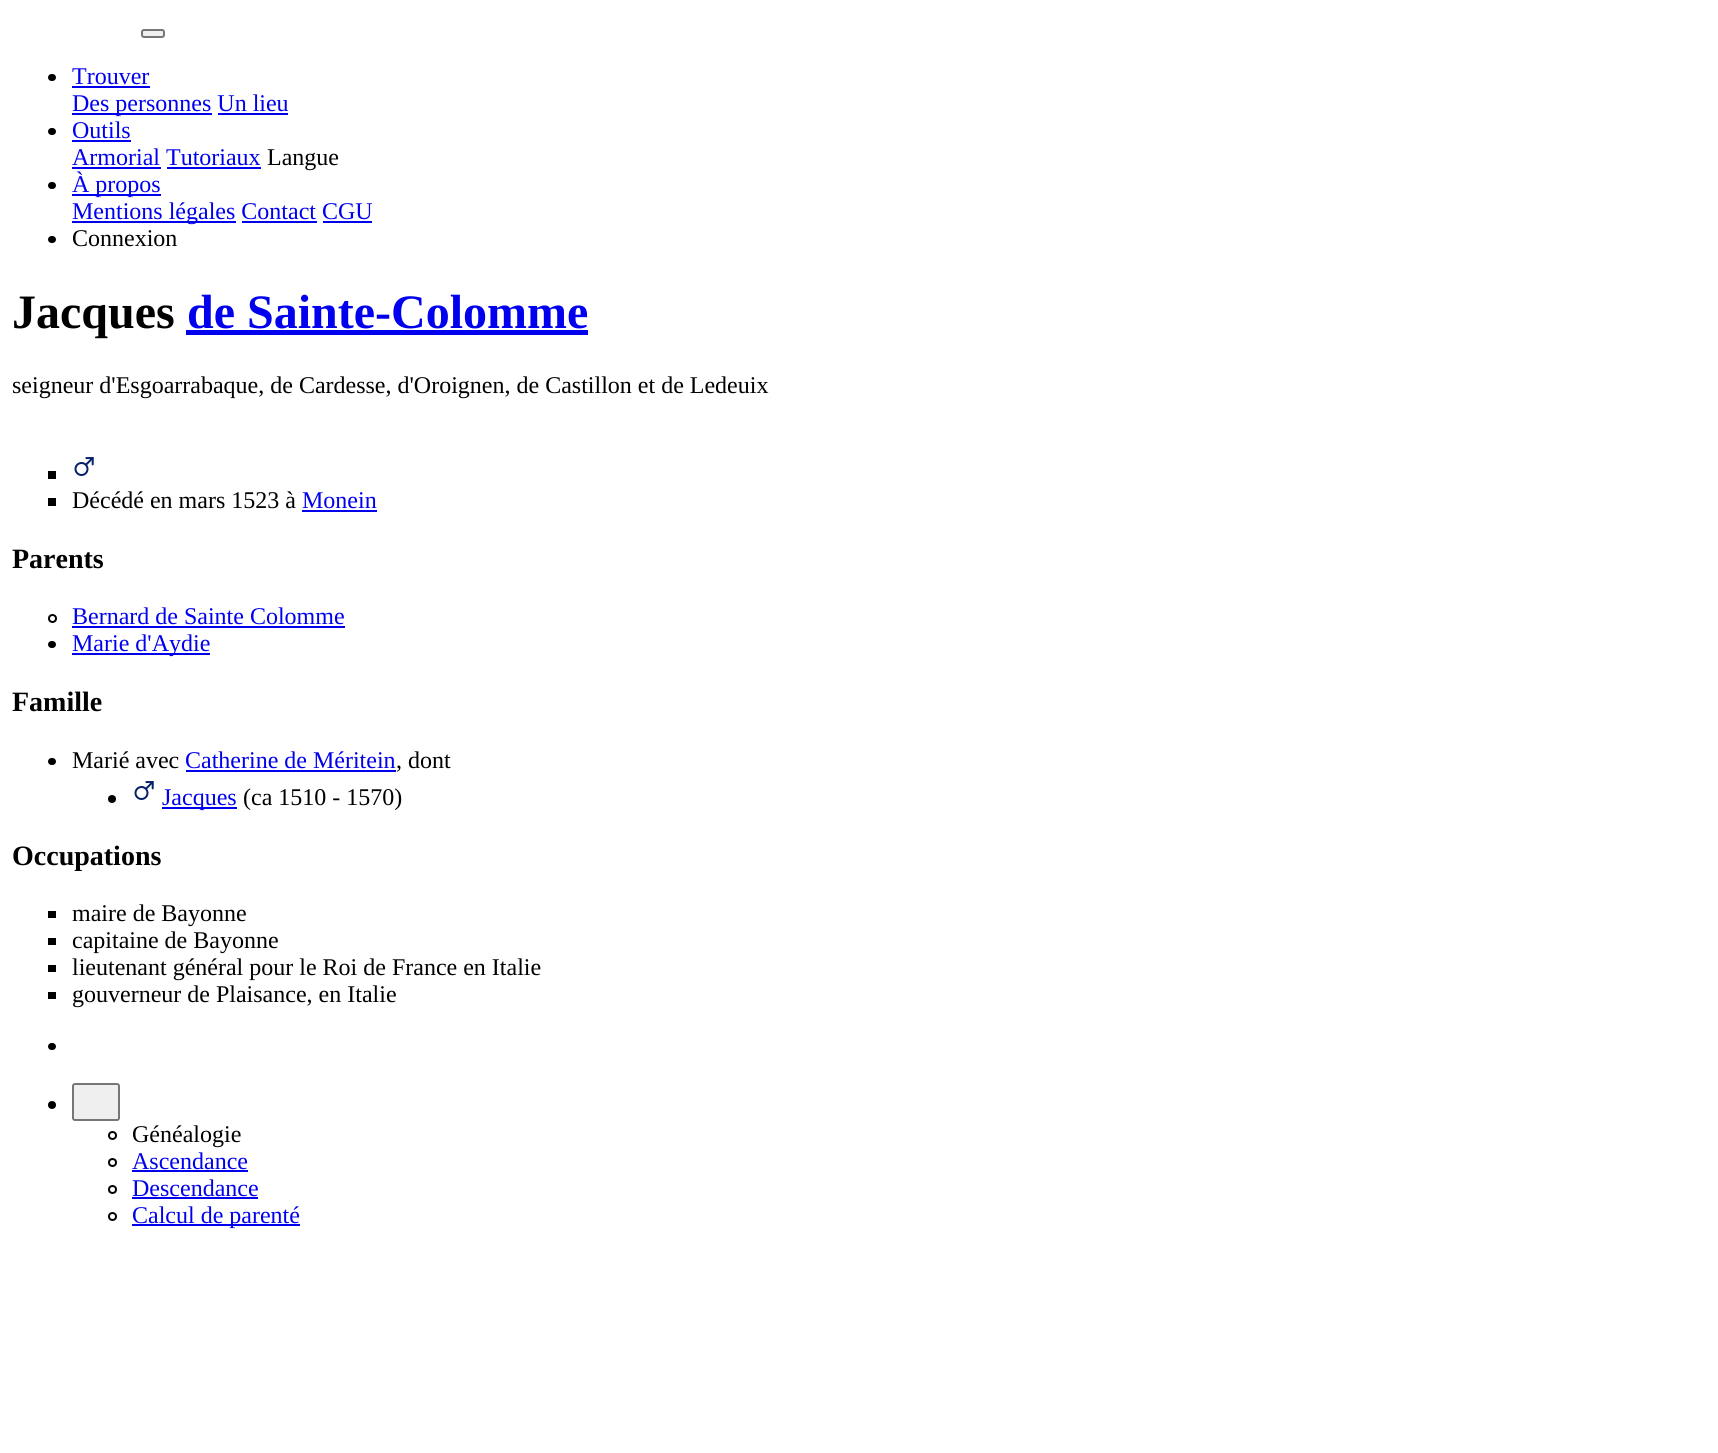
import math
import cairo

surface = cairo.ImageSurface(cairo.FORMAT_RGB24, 1718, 1453)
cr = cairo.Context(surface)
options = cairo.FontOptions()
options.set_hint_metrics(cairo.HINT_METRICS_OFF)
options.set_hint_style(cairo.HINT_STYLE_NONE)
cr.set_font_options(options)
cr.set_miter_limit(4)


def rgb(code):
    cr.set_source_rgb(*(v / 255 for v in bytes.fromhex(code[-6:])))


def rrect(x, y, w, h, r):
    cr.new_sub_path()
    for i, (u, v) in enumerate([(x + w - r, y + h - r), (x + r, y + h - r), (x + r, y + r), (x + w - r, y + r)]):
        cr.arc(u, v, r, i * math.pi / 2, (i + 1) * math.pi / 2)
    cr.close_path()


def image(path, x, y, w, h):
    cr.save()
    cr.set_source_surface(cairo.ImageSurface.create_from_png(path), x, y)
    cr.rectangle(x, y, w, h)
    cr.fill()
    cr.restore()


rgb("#ffffff")
cr.paint()
rgb("#efefef")
rrect(142, 30, 22, 7, 2)
cr.fill_preserve()
rgb("#767676")
cr.stroke()
rgb("#000000")
rrect(48, 74, 8, 7, 3.5)
cr.fill()
for x, y, w, h, color in [
    (72, 86, 78, 2, "#0000ee"),
    (72, 113, 140, 2, "#0000ee"),
    (218, 113, 70, 2, "#0000ee"),
]:
    rgb(color)
    cr.rectangle(x, y, w, h)
    cr.fill()
rgb("#000000")
rrect(48, 128, 8, 7, 3.5)
cr.fill()
for x, y, w, h, color in [
    (72, 140, 59, 2, "#0000ee"),
    (72, 167, 89, 2, "#0000ee"),
    (167, 167, 94, 2, "#0000ee"),
]:
    rgb(color)
    cr.rectangle(x, y, w, h)
    cr.fill()
rgb("#000000")
rrect(48, 182, 8, 7, 3.5)
cr.fill()
for x, y, w, h, color in [
    (72, 194, 89, 2, "#0000ee"),
    (72, 221, 164, 2, "#0000ee"),
    (242, 221, 75, 2, "#0000ee"),
    (323, 221, 49, 2, "#0000ee"),
]:
    rgb(color)
    cr.rectangle(x, y, w, h)
    cr.fill()
rgb("#000000")
rrect(48, 236, 8, 7, 3.5)
cr.fill()
rgb("#0000ee")
cr.rectangle(186, 330, 402, 5)
cr.fill()
rgb("#000000")
cr.rectangle(48, 471, 8, 8)
cr.fill()
image("img/1.png", 74, 457, 20, 19)
cr.rectangle(48, 498, 8, 8)
cr.fill()
rgb("#0000ee")
cr.rectangle(302, 510, 75, 2)
cr.fill()
cr.arc(52.5, 618.5, 3.5, 0, 2 * math.pi)
rgb("#000000")
cr.stroke()
rgb("#0000ee")
cr.rectangle(72, 626, 273, 2)
cr.fill()
rgb("#000000")
rrect(48, 641, 8, 7, 3.5)
cr.fill()
rgb("#0000ee")
cr.rectangle(72, 653, 138, 2)
cr.fill()
rgb("#000000")
rrect(48, 758, 8, 7, 3.5)
cr.fill()
rgb("#0000ee")
cr.rectangle(186, 770, 210, 2)
cr.fill()
rgb("#000000")
cr.arc(112, 799, 4, 0, 2 * math.pi)
cr.fill()
image("img/1.png", 134, 781, 20, 19)
for x, y, w, h, color in [
    (162, 807, 75, 2, "#0000ee"),
    (48, 911, 8, 7, "#000000"),
    (48, 938, 8, 7, "#000000"),
    (48, 965, 8, 7, "#000000"),
    (48, 992, 8, 7, "#000000"),
]:
    rgb(color)
    cr.rectangle(x, y, w, h)
    cr.fill()
rrect(48, 1043, 8, 7, 3.5)
cr.fill()
cr.arc(52, 1105, 4, 0, 2 * math.pi)
cr.fill()
rgb("#efefef")
rrect(73, 1084, 46, 36, 2)
cr.fill_preserve()
rgb("#767676")
cr.stroke()
cr.arc(112.5, 1135.5, 3.5, 0, 2 * math.pi)
rgb("#000000")
cr.stroke()
cr.arc(112.5, 1162.5, 3.5, 0, 2 * math.pi)
cr.stroke()
rgb("#0000ee")
cr.rectangle(132, 1170, 116, 2)
cr.fill()
cr.arc(112.5, 1189.5, 3.5, 0, 2 * math.pi)
rgb("#000000")
cr.stroke()
rgb("#0000ee")
cr.rectangle(132, 1197, 126, 2)
cr.fill()
cr.arc(112.5, 1216.5, 3.5, 0, 2 * math.pi)
rgb("#000000")
cr.stroke()
rgb("#0000ee")
cr.rectangle(132, 1224, 168, 2)
cr.fill()
cr.select_font_face("Liberation Serif")
cr.set_font_size(24)
for x, y, s in [
    (72, 84, "Trouver"),
    (72, 111, "Des personnes Un lieu"),
    (72, 138, "Outils"),
    (72, 165, "Armorial Tutoriaux"),
]:
    cr.move_to(x, y)
    cr.show_text(s)
rgb("#000000")
cr.move_to(267, 165)
cr.show_text("Langue")
rgb("#0000ee")
cr.move_to(72, 192)
cr.show_text("À propos")
cr.move_to(72, 219)
cr.show_text("Mentions légales Contact CGU")
rgb("#000000")
cr.move_to(72, 246)
cr.show_text("Connexion")
cr.select_font_face("Liberation Serif", cairo.FONT_SLANT_NORMAL, cairo.FONT_WEIGHT_BOLD)
cr.set_font_size(48)
cr.move_to(12, 328)
cr.show_text("Jacques")
rgb("#0000ee")
cr.move_to(187, 328)
cr.show_text("de Sainte-Colomme")
cr.select_font_face("Liberation Serif")
cr.set_font_size(24)
rgb("#000000")
cr.move_to(12, 393)
cr.show_text("seigneur d'Esgoarrabaque, de Cardesse, d'Oroignen, de Castillon et de Ledeuix")
cr.move_to(72, 508)
cr.show_text("Décédé en mars 1523 à")
rgb("#0000ee")
cr.move_to(302, 508)
cr.show_text("Monein")
cr.select_font_face("Liberation Serif", cairo.FONT_SLANT_NORMAL, cairo.FONT_WEIGHT_BOLD)
cr.set_font_size(28)
rgb("#000000")
cr.move_to(12, 568)
cr.show_text("Parents")
cr.select_font_face("Liberation Serif")
cr.set_font_size(24)
rgb("#0000ee")
cr.move_to(72, 624)
cr.show_text("Bernard de Sainte Colomme")
cr.move_to(72, 651)
cr.show_text("Marie d'Aydie")
cr.select_font_face("Liberation Serif", cairo.FONT_SLANT_NORMAL, cairo.FONT_WEIGHT_BOLD)
cr.set_font_size(28)
rgb("#000000")
cr.move_to(12, 711)
cr.show_text("Famille")
cr.select_font_face("Liberation Serif")
cr.set_font_size(24)
cr.move_to(72, 768)
cr.show_text("Marié avec")
rgb("#0000ee")
cr.move_to(185, 768)
cr.show_text("Catherine de Méritein")
rgb("#000000")
cr.move_to(396, 768)
cr.show_text(", dont")
rgb("#0000ee")
cr.move_to(162, 805)
cr.show_text("Jacques")
rgb("#000000")
cr.move_to(243, 805)
cr.show_text("(ca 1510 - 1570)")
cr.select_font_face("Liberation Serif", cairo.FONT_SLANT_NORMAL, cairo.FONT_WEIGHT_BOLD)
cr.set_font_size(28)
cr.move_to(12, 865)
cr.show_text("Occupations")
cr.select_font_face("Liberation Serif")
cr.set_font_size(24)
for x, y, s in [
    (72, 921, "maire de Bayonne"),
    (72, 948, "capitaine de Bayonne"),
    (72, 975, "lieutenant général pour le Roi de France en Italie"),
    (72, 1002, "gouverneur de Plaisance, en Italie"),
    (132, 1142, "Généalogie"),
]:
    cr.move_to(x, y)
    cr.show_text(s)
rgb("#0000ee")
for x, y, s in [
    (132, 1169, "Ascendance"),
    (132, 1196, "Descendance"),
    (132, 1223, "Calcul de parenté"),
]:
    cr.move_to(x, y)
    cr.show_text(s)
surface.write_to_png("page.png")
